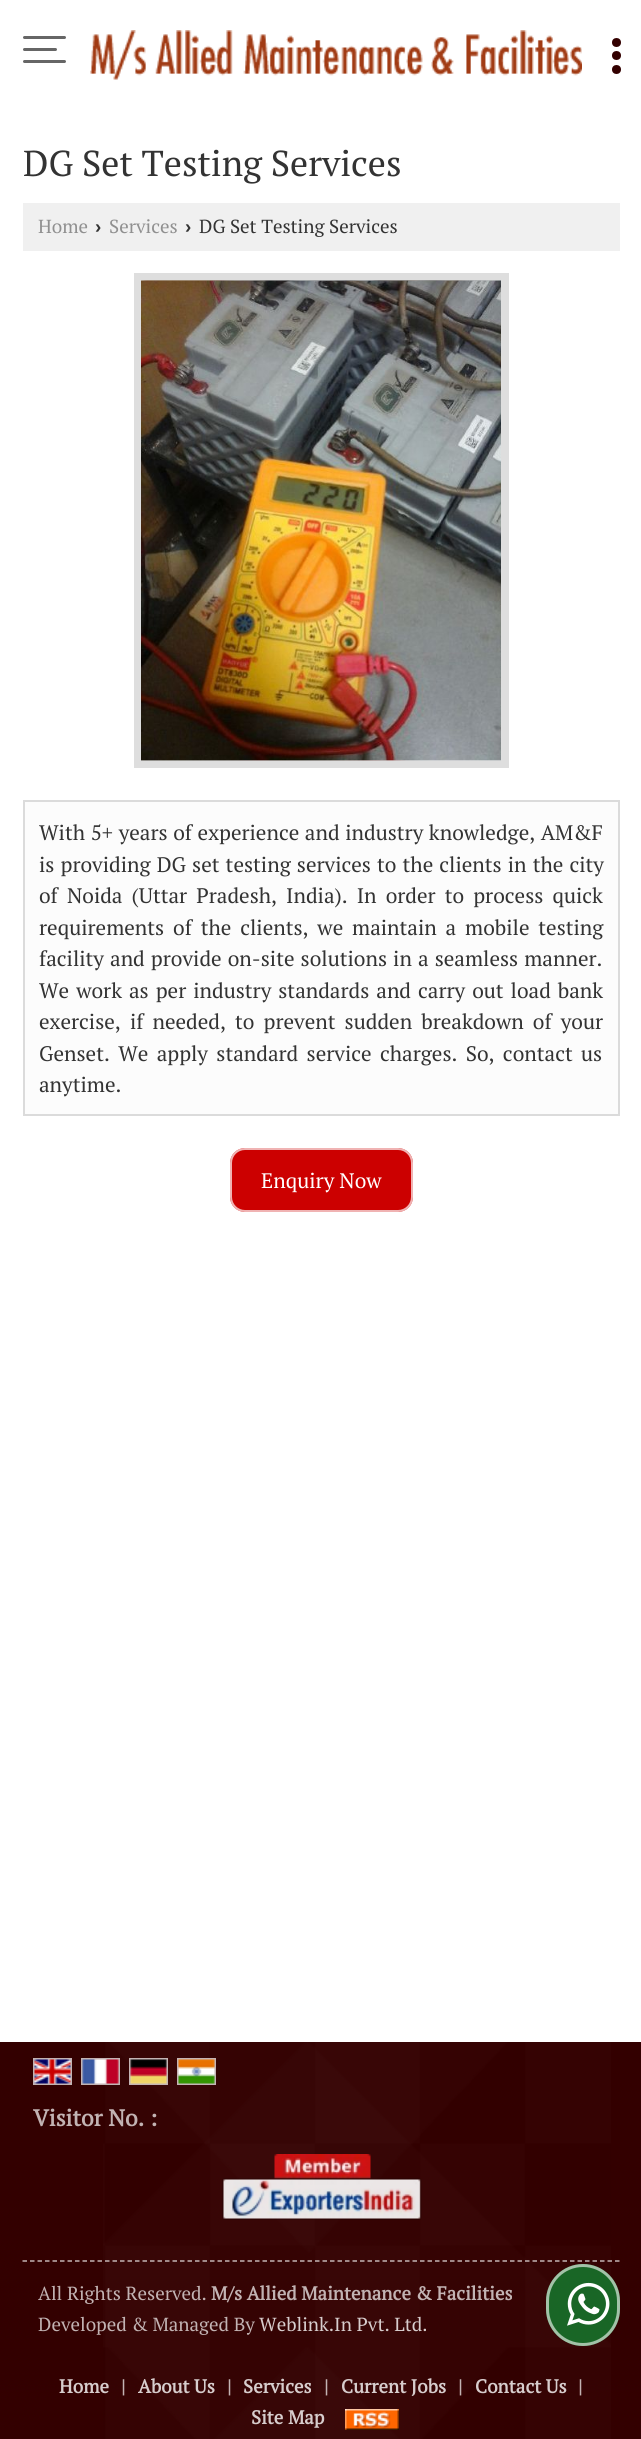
import math
import cairo

surface = cairo.ImageSurface(cairo.FORMAT_RGB24, 641, 2439)
cr = cairo.Context(surface)
options = cairo.FontOptions()
options.set_hint_metrics(cairo.HINT_METRICS_OFF)
options.set_hint_style(cairo.HINT_STYLE_NONE)
cr.set_font_options(options)
cr.set_miter_limit(4)


def rgb(code):
    cr.set_source_rgb(*(v / 255 for v in bytes.fromhex(code[-6:])))


def tracked(x, y, s, letter, word):
    cr.move_to(x, y)
    for ch in s:
        cr.show_text(ch)
        cr.rel_move_to(letter + word * (ch == ' '), 0)


def rrect(x, y, w, h, r):
    cr.new_sub_path()
    for i, (u, v) in enumerate([(x + w - r, y + h - r), (x + r, y + h - r), (x + r, y + r), (x + w - r, y + r)]):
        cr.arc(u, v, r, i * math.pi / 2, (i + 1) * math.pi / 2)
    cr.close_path()


def soft_shadow(x, y, w, h, r, blur, alpha):
    cr.push_group_with_content(cairo.CONTENT_ALPHA)
    cr.set_operator(cairo.OPERATOR_SOURCE)
    for i in range(15, -16, -2):
        e = blur * i / 6
        if min(w, h) + 2 * e > 0:
            cr.set_source_rgba(0, 0, 0, alpha * math.erfc((i - 1) / 8.5) / 2)
            rrect(x - e, y - e, w + 2 * e, h + 2 * e, max(0, min(r + e + blur * .6, min(w, h) / 2 + e)))
            cr.fill()
    cr.mask(cr.pop_group())


def image(path, x, y, w, h):
    cr.save()
    cr.set_source_surface(cairo.ImageSurface.create_from_png(path), x, y)
    cr.rectangle(x, y, w, h)
    cr.fill()
    cr.restore()


rgb("#ffffff")
cr.paint()
rgb("#666666")
rrect(23, 36, 43, 3, 1.5)
cr.fill()
rrect(23, 48, 34, 3, 1.5)
cr.fill()
rrect(23, 60, 43, 3, 1.5)
cr.fill()
image("img/1.png", 90, 30, 492, 50)
rgb("#330000")
cr.arc(616.5, 55.5, 4.5, 0, 2 * math.pi)
cr.fill()
cr.arc(616.5, 42.5, 4.5, 0, 2 * math.pi)
cr.fill()
cr.arc(616.5, 69.5, 4.5, 0, 2 * math.pi)
cr.fill()
rgb("#f0f0f0")
cr.rectangle(23, 203, 597, 48)
cr.fill()
cr.rectangle(138, 277, 367, 487)
rgb("#dedede")
cr.set_line_width(8)
cr.stroke()
image("img/2.png", 141, 280, 360, 481)
cr.save()
cr.rectangle(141, 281, 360, 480)
cr.clip()
rgb("#ffffff")
soft_shadow(141, 266, 375, 510, 0, 3, 0.5)
cr.restore()
image("img/3.png", 141, 280, 360, 481)
rgb("#fcfcfc")
cr.rectangle(24, 801, 595, 314)
cr.fill_preserve()
rgb("#dbdbdb")
cr.set_line_width(2)
cr.stroke()
rgb("#cc0000")
rrect(230, 1148, 183, 64, 15)
cr.fill()
rrect(231, 1149, 181, 62, 14)
cr.set_source_rgba(1, 1, 1, 0.7)
cr.stroke()
rgb("#330000")
cr.rectangle(0, 2042, 641, 397)
cr.fill()
image("img/4.png", 103, 2042, 508, 397)
cr.rectangle(34, 2059, 37, 25)
rgb("#c2b3b3")
cr.stroke()
cr.rectangle(82, 2059, 37, 25)
cr.set_source_rgba(1, 1, 1, 0.7)
cr.stroke()
cr.rectangle(130, 2059, 37, 25)
cr.stroke()
cr.rectangle(178, 2059, 37, 25)
cr.stroke()
image("img/5.png", 34, 2059, 37, 25)
image("img/6.png", 82, 2059, 37, 25)
image("img/7.png", 130, 2059, 37, 25)
image("img/8.png", 178, 2059, 37, 25)
image("img/9.png", 222, 2154, 200, 66)
cr.new_path()
cr.move_to(22.5, 2261)
cr.line_to(619.5, 2261)
cr.set_line_width(1.5)
cr.set_dash([4.5, 3])
cr.stroke()
image("img/10.png", 345, 2409, 54, 21)
rgb("#196626")
rrect(546, 2264, 74, 82, 37)
cr.fill()
rrect(547.5, 2265.5, 71, 79, 35.5)
cr.set_source_rgba(1, 1, 1, 0.6)
cr.set_line_width(3)
cr.set_dash([])
cr.stroke()
image("img/11.png", 567, 2282, 43, 44)
cr.select_font_face("PT Serif")
cr.set_font_size(36)
rgb("#333333")
cr.move_to(23, 176)
cr.show_text("DG Set Testing Services")
cr.set_font_size(18.9)
rgb("#909090")
cr.move_to(38, 233)
cr.show_text("Home")
cr.select_font_face("Liberation Sans", cairo.FONT_SLANT_NORMAL, cairo.FONT_WEIGHT_BOLD)
rgb("#333333")
cr.move_to(95, 233)
cr.show_text("›")
cr.select_font_face("PT Serif")
rgb("#909090")
cr.move_to(109, 233)
cr.show_text("Services")
cr.select_font_face("Liberation Sans", cairo.FONT_SLANT_NORMAL, cairo.FONT_WEIGHT_BOLD)
rgb("#333333")
cr.move_to(185, 233)
cr.show_text("›")
cr.select_font_face("PT Serif")
cr.move_to(199, 233)
cr.show_text("DG Set Testing Services")
cr.set_font_size(21)
tracked(39, 840, "With 5+ years of experience and industry knowledge, AM&F", 0, 0.5)
tracked(39, 872, "is providing DG set testing services to the clients in the city", 0, 1)
tracked(39, 903, "of Noida (Uttar Pradesh, India). In order to process quick", 0, 4)
tracked(39, 935, "requirements of the clients, we maintain a mobile testing", 0, 3.75)
tracked(39, 966, "facility and provide on-site solutions in a seamless manner.", 0, 1)
tracked(39, 998, "We work as per industry standards and carry out load bank", 0, 1.9)
tracked(39, 1029, "exercise, if needed, to prevent sudden breakdown of your", 0, 4)
tracked(39, 1061, "Genset. We apply standard service charges. So, contact us", 0, 3.25)
cr.move_to(39, 1092)
cr.show_text("anytime.")
rgb("#ffffff")
cr.move_to(261, 1188)
cr.show_text("Enquiry Now")
cr.select_font_face("PT Serif", cairo.FONT_SLANT_NORMAL, cairo.FONT_WEIGHT_BOLD)
cr.set_font_size(23)
rgb("#c2b3b3")
cr.move_to(33, 2126)
cr.show_text("Visitor No. :")
cr.select_font_face("PT Serif")
cr.set_font_size(18.9)
cr.move_to(38, 2300)
cr.show_text("All Rights Reserved.")
cr.select_font_face("PT Serif", cairo.FONT_SLANT_NORMAL, cairo.FONT_WEIGHT_BOLD)
cr.move_to(211, 2300)
cr.show_text("M/s Allied Maintenance & Facilities")
cr.select_font_face("PT Serif")
cr.move_to(38, 2331)
cr.show_text("Developed & Managed By")
rgb("#d7cdcd")
cr.move_to(259, 2331)
cr.show_text("Weblink.In Pvt. Ltd.")
cr.select_font_face("PT Serif", cairo.FONT_SLANT_NORMAL, cairo.FONT_WEIGHT_BOLD)
cr.move_to(59, 2393)
cr.show_text("Home")
rgb("#c2b3b3")
cr.move_to(121, 2393)
cr.show_text("|")
rgb("#d7cdcd")
cr.move_to(138, 2393)
cr.show_text("About Us")
rgb("#c2b3b3")
cr.move_to(227, 2393)
cr.show_text("|")
rgb("#d7cdcd")
cr.move_to(243, 2393)
cr.show_text("Services")
rgb("#c2b3b3")
cr.move_to(324, 2393)
cr.show_text("|")
rgb("#d7cdcd")
cr.move_to(341, 2393)
cr.show_text("Current Jobs")
rgb("#c2b3b3")
cr.move_to(458, 2393)
cr.show_text("|")
rgb("#d7cdcd")
cr.move_to(475, 2393)
cr.show_text("Contact Us")
rgb("#c2b3b3")
cr.move_to(578, 2393)
cr.show_text("|")
rgb("#d7cdcd")
cr.move_to(251, 2424)
cr.show_text("Site Map")
surface.write_to_png("page.png")
